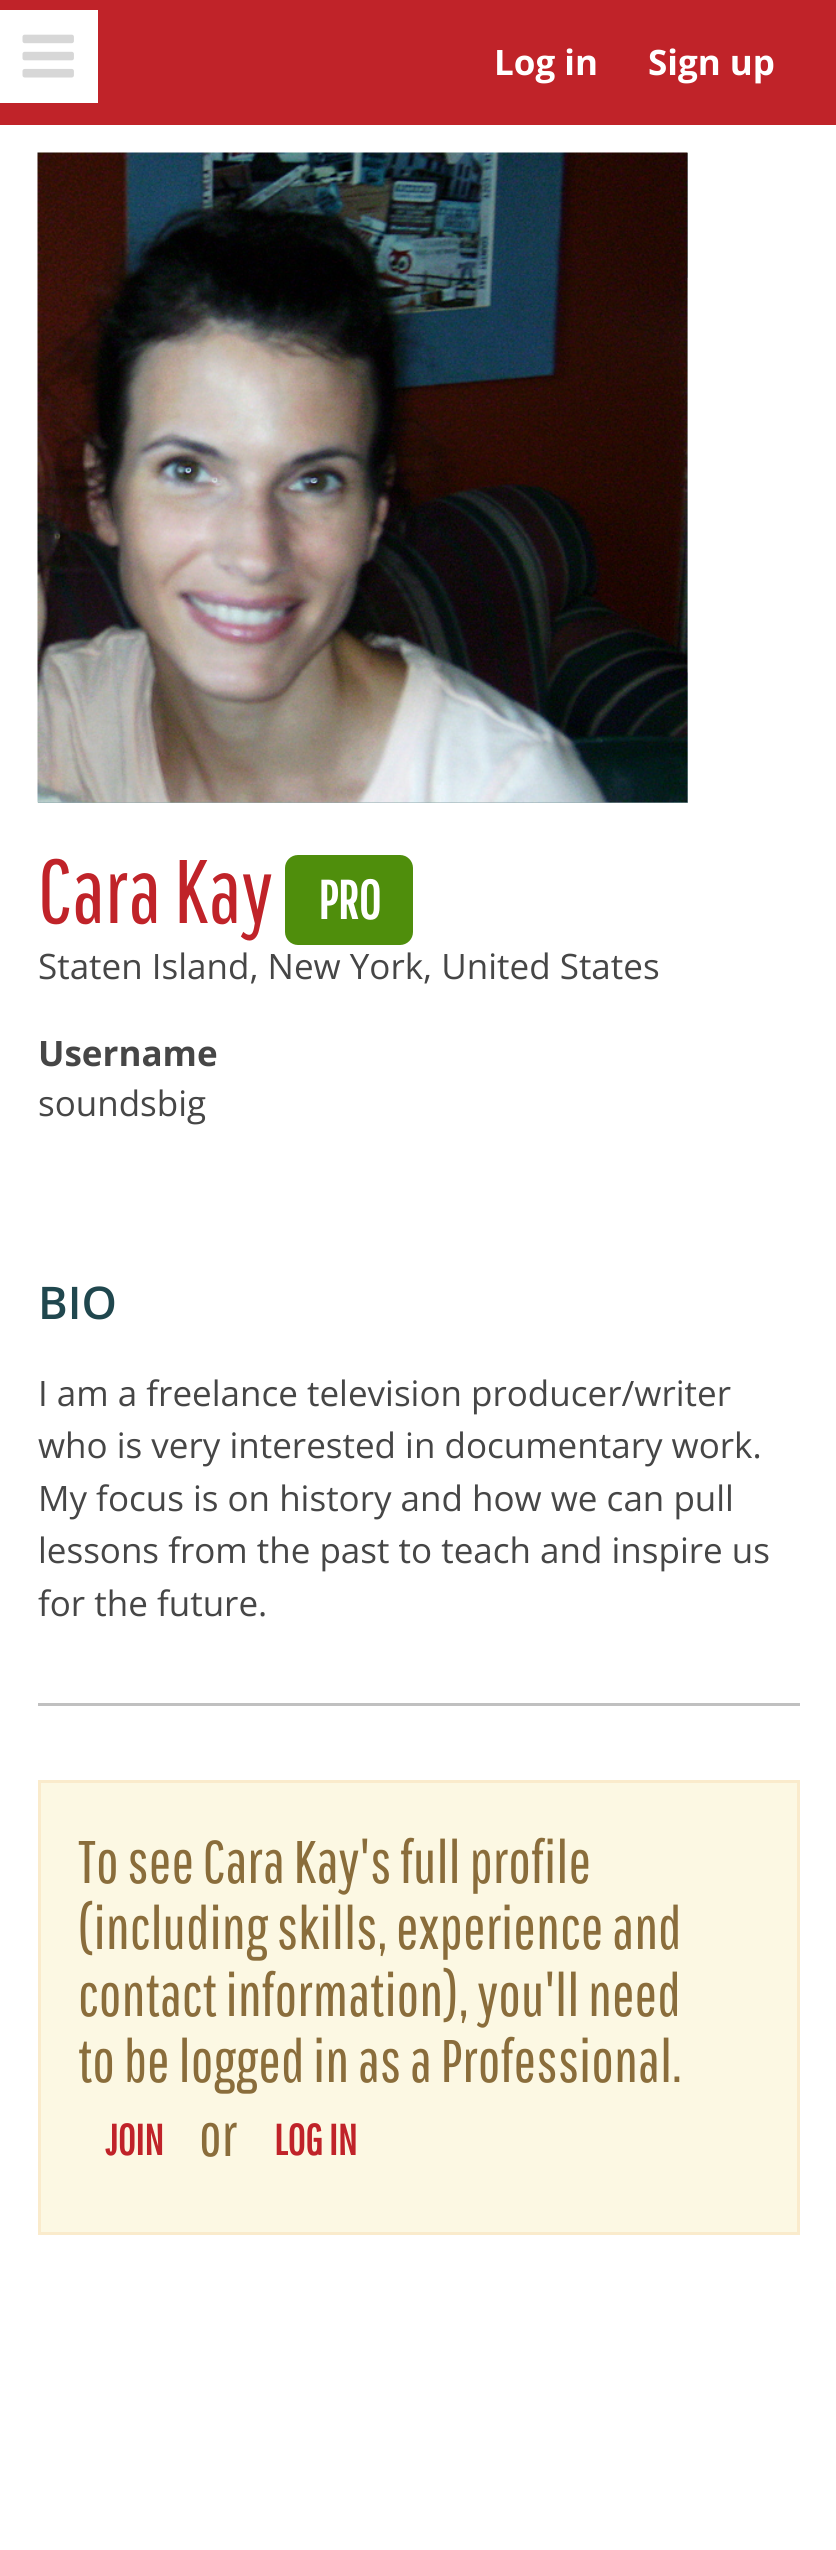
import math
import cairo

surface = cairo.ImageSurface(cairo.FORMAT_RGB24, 836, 2550)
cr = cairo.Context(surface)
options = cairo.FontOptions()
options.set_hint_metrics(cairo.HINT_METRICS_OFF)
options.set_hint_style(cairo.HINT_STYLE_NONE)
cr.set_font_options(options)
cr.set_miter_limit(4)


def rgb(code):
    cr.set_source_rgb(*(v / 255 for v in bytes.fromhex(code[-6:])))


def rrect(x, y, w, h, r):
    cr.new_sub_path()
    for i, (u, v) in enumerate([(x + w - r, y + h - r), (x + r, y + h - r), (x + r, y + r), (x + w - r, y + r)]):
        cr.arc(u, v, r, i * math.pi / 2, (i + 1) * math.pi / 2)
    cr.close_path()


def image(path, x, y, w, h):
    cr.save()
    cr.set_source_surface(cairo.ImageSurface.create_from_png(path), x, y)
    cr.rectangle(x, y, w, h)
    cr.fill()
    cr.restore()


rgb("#ffffff")
cr.paint()
rgb("#c02329")
cr.rectangle(0, 0, 836, 125)
cr.fill()
rgb("#ffffff")
cr.rectangle(0, 10, 98, 93)
cr.fill()
image("img/1.png", 22, 34, 52, 44)
image("img/2.png", 38, 153, 650, 650)
image("img/3.png", 37, 152, 651, 651)
rgb("#4f8e0c")
rrect(285, 855, 128, 90, 13)
cr.fill()
rgb("#c0c0c0")
cr.rectangle(38, 1703, 762, 3)
cr.fill()
rgb("#fcf8e3")
cr.rectangle(39.5, 1781.5, 759, 452)
cr.fill_preserve()
rgb("#faebcc")
cr.set_line_width(3)
cr.stroke()
cr.select_font_face("Open Sans", cairo.FONT_SLANT_NORMAL, cairo.FONT_WEIGHT_BOLD)
cr.set_font_size(35)
rgb("#ffffff")
cr.move_to(494, 75)
cr.show_text("Log in")
cr.move_to(648, 75)
cr.show_text("Sign up")
cr.select_font_face("Pathway Gothic One")
cr.set_font_size(90)
rgb("#c02329")
cr.move_to(38, 923)
cr.show_text("Cara Kay")
cr.select_font_face("Pathway Gothic One", cairo.FONT_SLANT_NORMAL, cairo.FONT_WEIGHT_BOLD)
cr.set_font_size(54)
rgb("#ffffff")
cr.move_to(318, 919)
cr.show_text("PRO")
cr.select_font_face("Open Sans")
cr.set_font_size(35)
rgb("#464646")
cr.move_to(38, 979)
cr.show_text("Staten Island, New York, United States")
cr.select_font_face("Open Sans", cairo.FONT_SLANT_NORMAL, cairo.FONT_WEIGHT_BOLD)
cr.move_to(38, 1066)
cr.show_text("Username")
cr.select_font_face("Open Sans")
cr.move_to(38, 1116)
cr.show_text("soundsbig")
cr.select_font_face("Open Sans SemiBold")
cr.set_font_size(45)
rgb("#20474e")
cr.move_to(38, 1319)
cr.show_text("BIO")
cr.select_font_face("Open Sans")
cr.set_font_size(35)
rgb("#464646")
for x, y, s in [
    (38, 1406, "I am a freelance television producer/writer"),
    (38, 1458, "who is very interested in documentary work."),
    (38, 1511, "My focus is on history and how we can pull"),
    (38, 1563, "lessons from the past to teach and inspire us"),
    (38, 1616, "for the future."),
]:
    cr.move_to(x, y)
    cr.show_text(s)
cr.select_font_face("Pathway Gothic One")
cr.set_font_size(60)
rgb("#8a6d3b")
for x, y, s in [
    (78, 1883, "To see Cara Kay's full profile"),
    (78, 1949, "(including skills, experience and"),
    (78, 2016, "contact information), you'll need"),
    (78, 2082, "to be logged in as a Professional."),
]:
    cr.move_to(x, y)
    cr.show_text(s)
cr.select_font_face("Pathway Gothic One", cairo.FONT_SLANT_NORMAL, cairo.FONT_WEIGHT_BOLD)
cr.set_font_size(43)
rgb("#c02329")
cr.move_to(105, 2155)
cr.show_text("JOIN")
cr.select_font_face("Pathway Gothic One")
cr.set_font_size(60)
rgb("#8a6d3b")
cr.move_to(199, 2156)
cr.show_text("or")
cr.select_font_face("Pathway Gothic One", cairo.FONT_SLANT_NORMAL, cairo.FONT_WEIGHT_BOLD)
cr.set_font_size(43)
rgb("#c02329")
cr.move_to(274, 2155)
cr.show_text("LOG IN")
surface.write_to_png("page.png")
